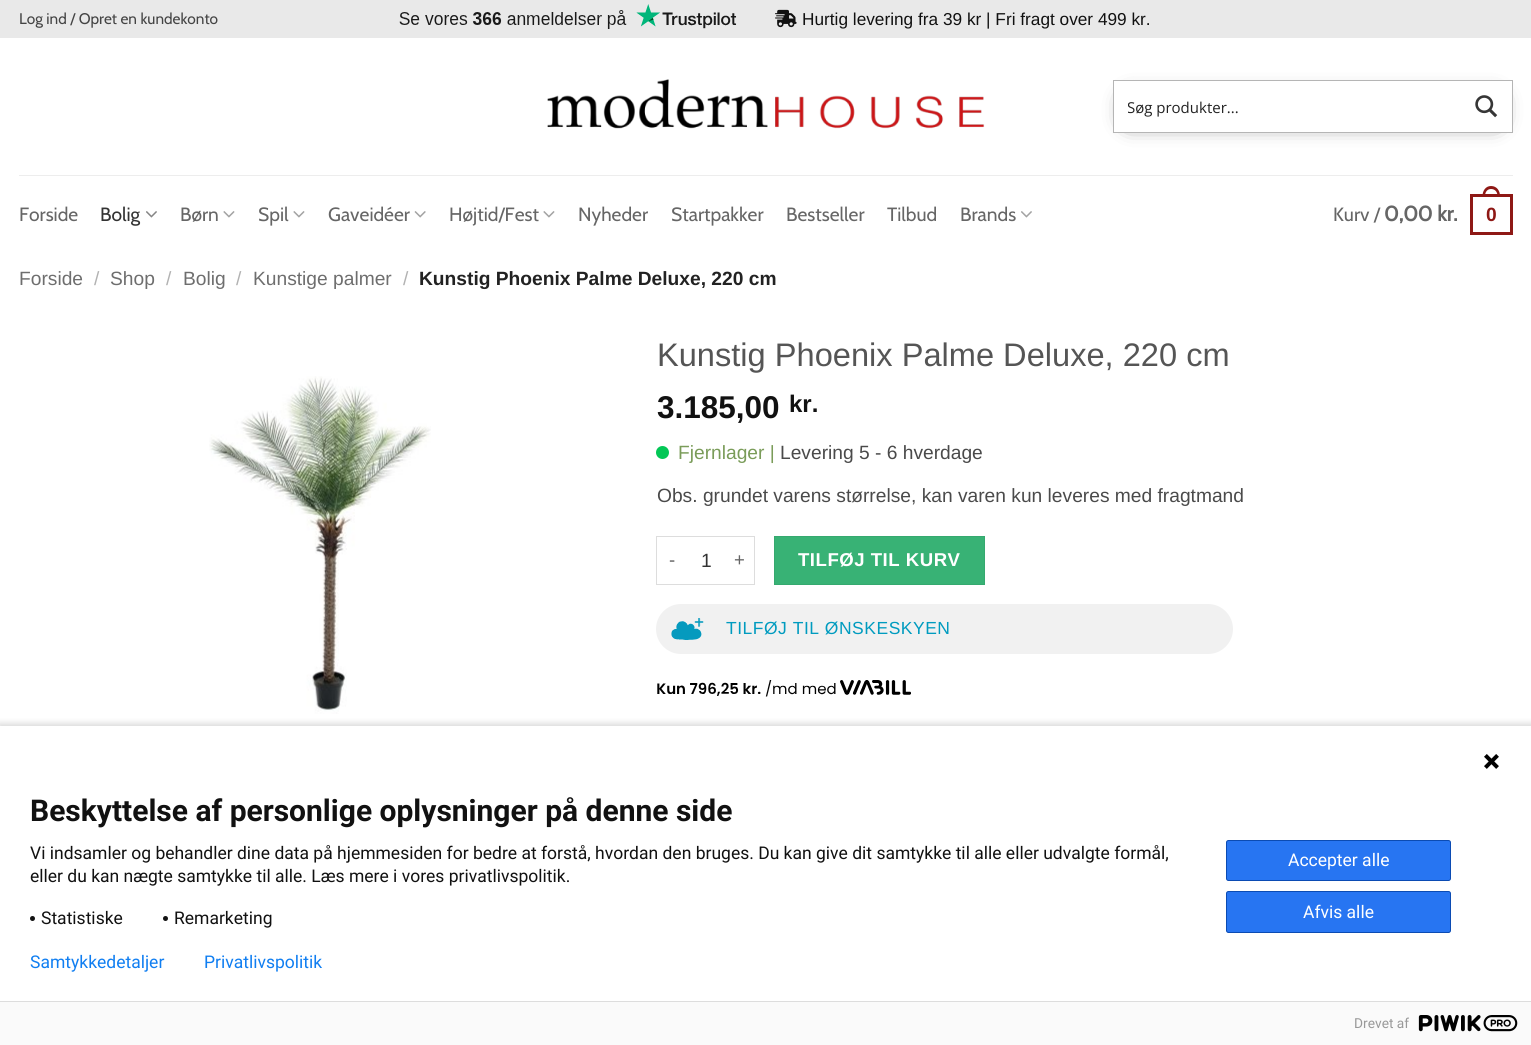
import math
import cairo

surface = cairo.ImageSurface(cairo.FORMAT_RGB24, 1531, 1045)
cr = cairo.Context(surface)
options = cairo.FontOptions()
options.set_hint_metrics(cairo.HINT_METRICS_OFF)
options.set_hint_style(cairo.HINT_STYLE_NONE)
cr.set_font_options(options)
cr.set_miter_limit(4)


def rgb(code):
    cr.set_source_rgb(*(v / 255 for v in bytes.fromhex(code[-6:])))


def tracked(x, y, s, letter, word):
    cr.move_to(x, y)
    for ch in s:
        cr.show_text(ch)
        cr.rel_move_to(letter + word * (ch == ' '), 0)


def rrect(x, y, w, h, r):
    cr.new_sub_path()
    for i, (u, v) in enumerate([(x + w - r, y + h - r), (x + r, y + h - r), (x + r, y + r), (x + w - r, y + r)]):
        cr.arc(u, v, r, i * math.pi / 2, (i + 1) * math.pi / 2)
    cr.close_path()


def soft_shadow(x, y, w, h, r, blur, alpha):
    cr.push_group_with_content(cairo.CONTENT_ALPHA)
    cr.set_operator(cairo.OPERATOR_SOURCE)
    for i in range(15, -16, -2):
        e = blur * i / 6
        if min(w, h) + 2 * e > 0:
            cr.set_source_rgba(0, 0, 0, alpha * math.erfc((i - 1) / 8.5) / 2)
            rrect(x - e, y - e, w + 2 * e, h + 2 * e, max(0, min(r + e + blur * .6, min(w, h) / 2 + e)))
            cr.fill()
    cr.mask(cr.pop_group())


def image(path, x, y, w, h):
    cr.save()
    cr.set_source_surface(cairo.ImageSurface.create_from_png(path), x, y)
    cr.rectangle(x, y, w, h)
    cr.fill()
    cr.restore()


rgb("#ffffff")
cr.paint()
rgb("#e9e9e9")
cr.rectangle(0, 0, 1531, 38)
cr.fill()
image("img/1.png", 399, 4, 338, 25)
image("img/2.png", 775, 9, 22, 19)
image("img/3.png", 547, 79, 438, 50)
rgb("#000000")
soft_shadow(1129, 100, 367, 20, 0, 11, 1)
rgb("#ffffff")
cr.rectangle(1113.5, 80.5, 399, 52)
cr.fill_preserve()
rgb("#b5b5b5")
cr.set_line_width(1)
cr.stroke()
image("img/4.png", 1475, 95, 23, 23)
rgb("#ededed")
cr.rectangle(19, 175, 1494, 1)
cr.fill()
image("img/5.png", 146, 211, 11, 7)
image("img/6.png", 223, 211, 12, 7)
image("img/6.png", 293, 211, 12, 7)
image("img/7.png", 414, 211, 12, 7)
image("img/6.png", 543, 211, 12, 7)
image("img/8.png", 1021, 211, 11, 7)
cr.rectangle(1471.5, 195.5, 40, 38)
rgb("#8e1815")
cr.set_line_width(3)
cr.stroke()
cr.set_fill_rule(cairo.FILL_RULE_EVEN_ODD)
cr.new_path()
cr.move_to(1491, 186)
cr.curve_to(1497, 186, 1500, 191, 1500, 196)
cr.line_to(1482.5, 196)
cr.curve_to(1482.5, 191, 1485.5, 186, 1491, 186)
cr.close_path()
cr.move_to(1491, 189)
cr.curve_to(1495.5, 189, 1497.5, 192.5, 1497.5, 196)
cr.line_to(1485, 196)
cr.curve_to(1485, 192.5, 1487, 189, 1491, 189)
cr.close_path()
cr.fill()
image("img/9.png", 209, 376, 222, 338)
rgb("#03c756")
cr.arc(662.5, 452.5, 6.5, 0, 2 * math.pi)
cr.fill()
for x, y, w, h, color in [
    (656, 536, 99, 1, "#dddddd"),
    (656, 584, 69, 1, "#dddddd"),
    (656, 536, 1, 49, "#dddddd"),
    (754, 536, 1, 49, "#dddddd"),
    (725, 584, 30, 1, "#dddddd"),
]:
    rgb(color)
    cr.rectangle(x, y, w, h)
    cr.fill()
rgb("#38b275")
cr.rectangle(774.5, 536.5, 210, 48)
cr.fill_preserve()
rgb("#35a96f")
cr.set_line_width(1)
cr.stroke()
rgb("#f1f1f1")
rrect(656, 604, 577, 50, 25)
cr.fill()
image("img/10.png", 671, 618, 33, 22)
image("img/11.png", 657, 680, 254, 17)
rgb("#000000")
soft_shadow(-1, 723, 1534, 321, 0, 3, 0.14)
rgb("#ffffff")
cr.rectangle(0, 726, 1531, 275)
cr.fill()
image("img/12.png", 1484, 754, 15, 15)
rgb("#131313")
cr.arc(32.5, 918.5, 2.5, 0, 2 * math.pi)
cr.fill()
cr.arc(165.5, 918.5, 2.5, 0, 2 * math.pi)
cr.fill()
rgb("#2775f2")
rrect(1226.5, 840.5, 224, 40, 2)
cr.fill_preserve()
rgb("#0b4bb3")
cr.stroke()
rgb("#2775f2")
rrect(1226.5, 891.5, 224, 41, 2)
cr.fill_preserve()
rgb("#0b4bb3")
cr.stroke()
rgb("#fafafa")
cr.rectangle(0, 1002, 1531, 43)
cr.fill()
rgb("#dddddd")
cr.rectangle(0, 1001, 1531, 1)
cr.fill()
image("img/13.png", 1418, 1015, 100, 17)
cr.select_font_face("Cabin")
cr.set_font_size(15.4)
rgb("#444444")
cr.move_to(19, 24)
cr.show_text("Log ind / Opret en kundekonto")
cr.select_font_face("Liberation Sans")
cr.set_font_size(17.25)
rgb("#111111")
cr.move_to(802, 25)
cr.show_text("Hurtig levering fra 39 kr | Fri fragt over 499 kr.")
cr.save()
cr.set_fill_rule(cairo.FILL_RULE_WINDING)
cr.rectangle(1128, 98, 322, 21)
cr.clip()
cr.select_font_face("Open Sans")
cr.set_font_size(15)
rgb("#222222")
cr.move_to(1127, 113)
cr.show_text("Søg produkter...")
cr.restore()
cr.select_font_face("Cabin")
cr.set_font_size(19.2)
rgb("#666666")
cr.move_to(19, 221)
cr.show_text("Forside")
rgb("#333333")
cr.move_to(100, 221)
cr.show_text("Bolig")
rgb("#666666")
for x, y, s in [
    (180, 221, "Børn"),
    (258, 221, "Spil"),
    (328, 221, "Gaveidéer"),
    (449, 221, "Højtid/Fest"),
    (578, 221, "Nyheder"),
    (671, 221, "Startpakker"),
    (786, 221, "Bestseller"),
    (887, 221, "Tilbud"),
    (960, 221, "Brands"),
    (1333, 221, "Kurv /"),
]:
    cr.move_to(x, y)
    cr.show_text(s)
cr.select_font_face("Cabin", cairo.FONT_SLANT_NORMAL, cairo.FONT_WEIGHT_BOLD)
cr.set_font_size(21)
cr.move_to(1384, 221)
cr.show_text("0,00 kr.")
cr.select_font_face("Liberation Sans", cairo.FONT_SLANT_NORMAL, cairo.FONT_WEIGHT_BOLD)
cr.set_font_size(19.2)
rgb("#8e1815")
cr.move_to(1486, 221)
cr.show_text("0")
cr.select_font_face("Liberation Sans")
rgb("#6e6e6e")
cr.move_to(19, 285)
cr.show_text("Forside")
rgb("#b2b2b2")
cr.move_to(94, 285)
cr.show_text("/")
rgb("#6e6e6e")
cr.move_to(110, 285)
cr.show_text("Shop")
rgb("#b2b2b2")
cr.move_to(166, 285)
cr.show_text("/")
rgb("#6e6e6e")
cr.move_to(183, 285)
cr.show_text("Bolig")
rgb("#b2b2b2")
cr.move_to(236, 285)
cr.show_text("/")
rgb("#6e6e6e")
cr.move_to(253, 285)
cr.show_text("Kunstige palmer")
rgb("#b2b2b2")
cr.move_to(403, 285)
cr.show_text("/")
cr.select_font_face("Liberation Sans", cairo.FONT_SLANT_NORMAL, cairo.FONT_WEIGHT_BOLD)
rgb("#222222")
cr.move_to(419, 285)
cr.show_text("Kunstig Phoenix Palme Deluxe, 220 cm")
cr.select_font_face("Liberation Sans")
cr.set_font_size(32.6)
rgb("#555555")
cr.move_to(657, 366)
cr.show_text("Kunstig Phoenix Palme Deluxe, 220 cm")
cr.select_font_face("Liberation Sans", cairo.FONT_SLANT_NORMAL, cairo.FONT_WEIGHT_BOLD)
cr.set_font_size(31.5)
rgb("#111111")
cr.move_to(657, 418)
cr.show_text("3.185,00")
cr.set_font_size(24)
cr.move_to(789, 412)
cr.show_text("kr.")
cr.select_font_face("Liberation Sans")
cr.set_font_size(19.2)
rgb("#7a9c59")
cr.move_to(678, 459)
cr.show_text("Fjernlager |")
rgb("#4a4a4a")
cr.move_to(780, 459)
cr.show_text("Levering 5 - 6 hverdage")
cr.move_to(657, 502)
cr.show_text("Obs. grundet varens størrelse, kan varen kun leveres med fragtmand")
cr.set_font_size(18.6)
rgb("#666666")
tracked(669, 566, "-", 0.5, 0)
cr.set_font_size(19.2)
rgb("#333333")
cr.move_to(701, 567)
cr.show_text("1")
cr.set_font_size(18.6)
rgb("#666666")
tracked(734, 566, "+", 0.5, 0)
cr.select_font_face("Liberation Sans", cairo.FONT_SLANT_NORMAL, cairo.FONT_WEIGHT_BOLD)
rgb("#ffffff")
tracked(798, 566, "TILFØJ TIL KURV", 0.5, 0)
cr.select_font_face("Liberation Sans")
cr.set_font_size(17.5)
rgb("#009bbf")
tracked(726, 634, "TILFØJ TIL ØNSKESKYEN", 0.5, 0)
cr.select_font_face("Roboto", cairo.FONT_SLANT_NORMAL, cairo.FONT_WEIGHT_BOLD)
cr.set_font_size(30)
rgb("#111111")
cr.move_to(30, 821)
cr.show_text("Beskyttelse af personlige oplysninger på denne side")
cr.select_font_face("Roboto")
cr.set_font_size(17.5)
for x, y, s in [
    (30, 859, "Vi indsamler og behandler dine data på hjemmesiden for bedre at forstå, hvordan den bruges. Du kan give dit samtykke til alle eller udvalgte formål,"),
    (30, 882, "eller du kan nægte samtykke til alle. Læs mere i vores privatlivspolitik."),
    (41, 924, "Statistiske"),
    (174, 924, "Remarketing"),
]:
    cr.move_to(x, y)
    cr.show_text(s)
rgb("#ffffff")
cr.move_to(1288, 866)
cr.show_text("Accepter alle")
cr.move_to(1303, 918)
cr.show_text("Afvis alle")
rgb("#107ef1")
cr.move_to(30, 968)
cr.show_text("Samtykkedetaljer")
cr.move_to(204, 968)
cr.show_text("Privatlivspolitik")
cr.set_font_size(13.75)
rgb("#999999")
cr.move_to(1354, 1028)
cr.show_text("Drevet af")
surface.write_to_png("page.png")
